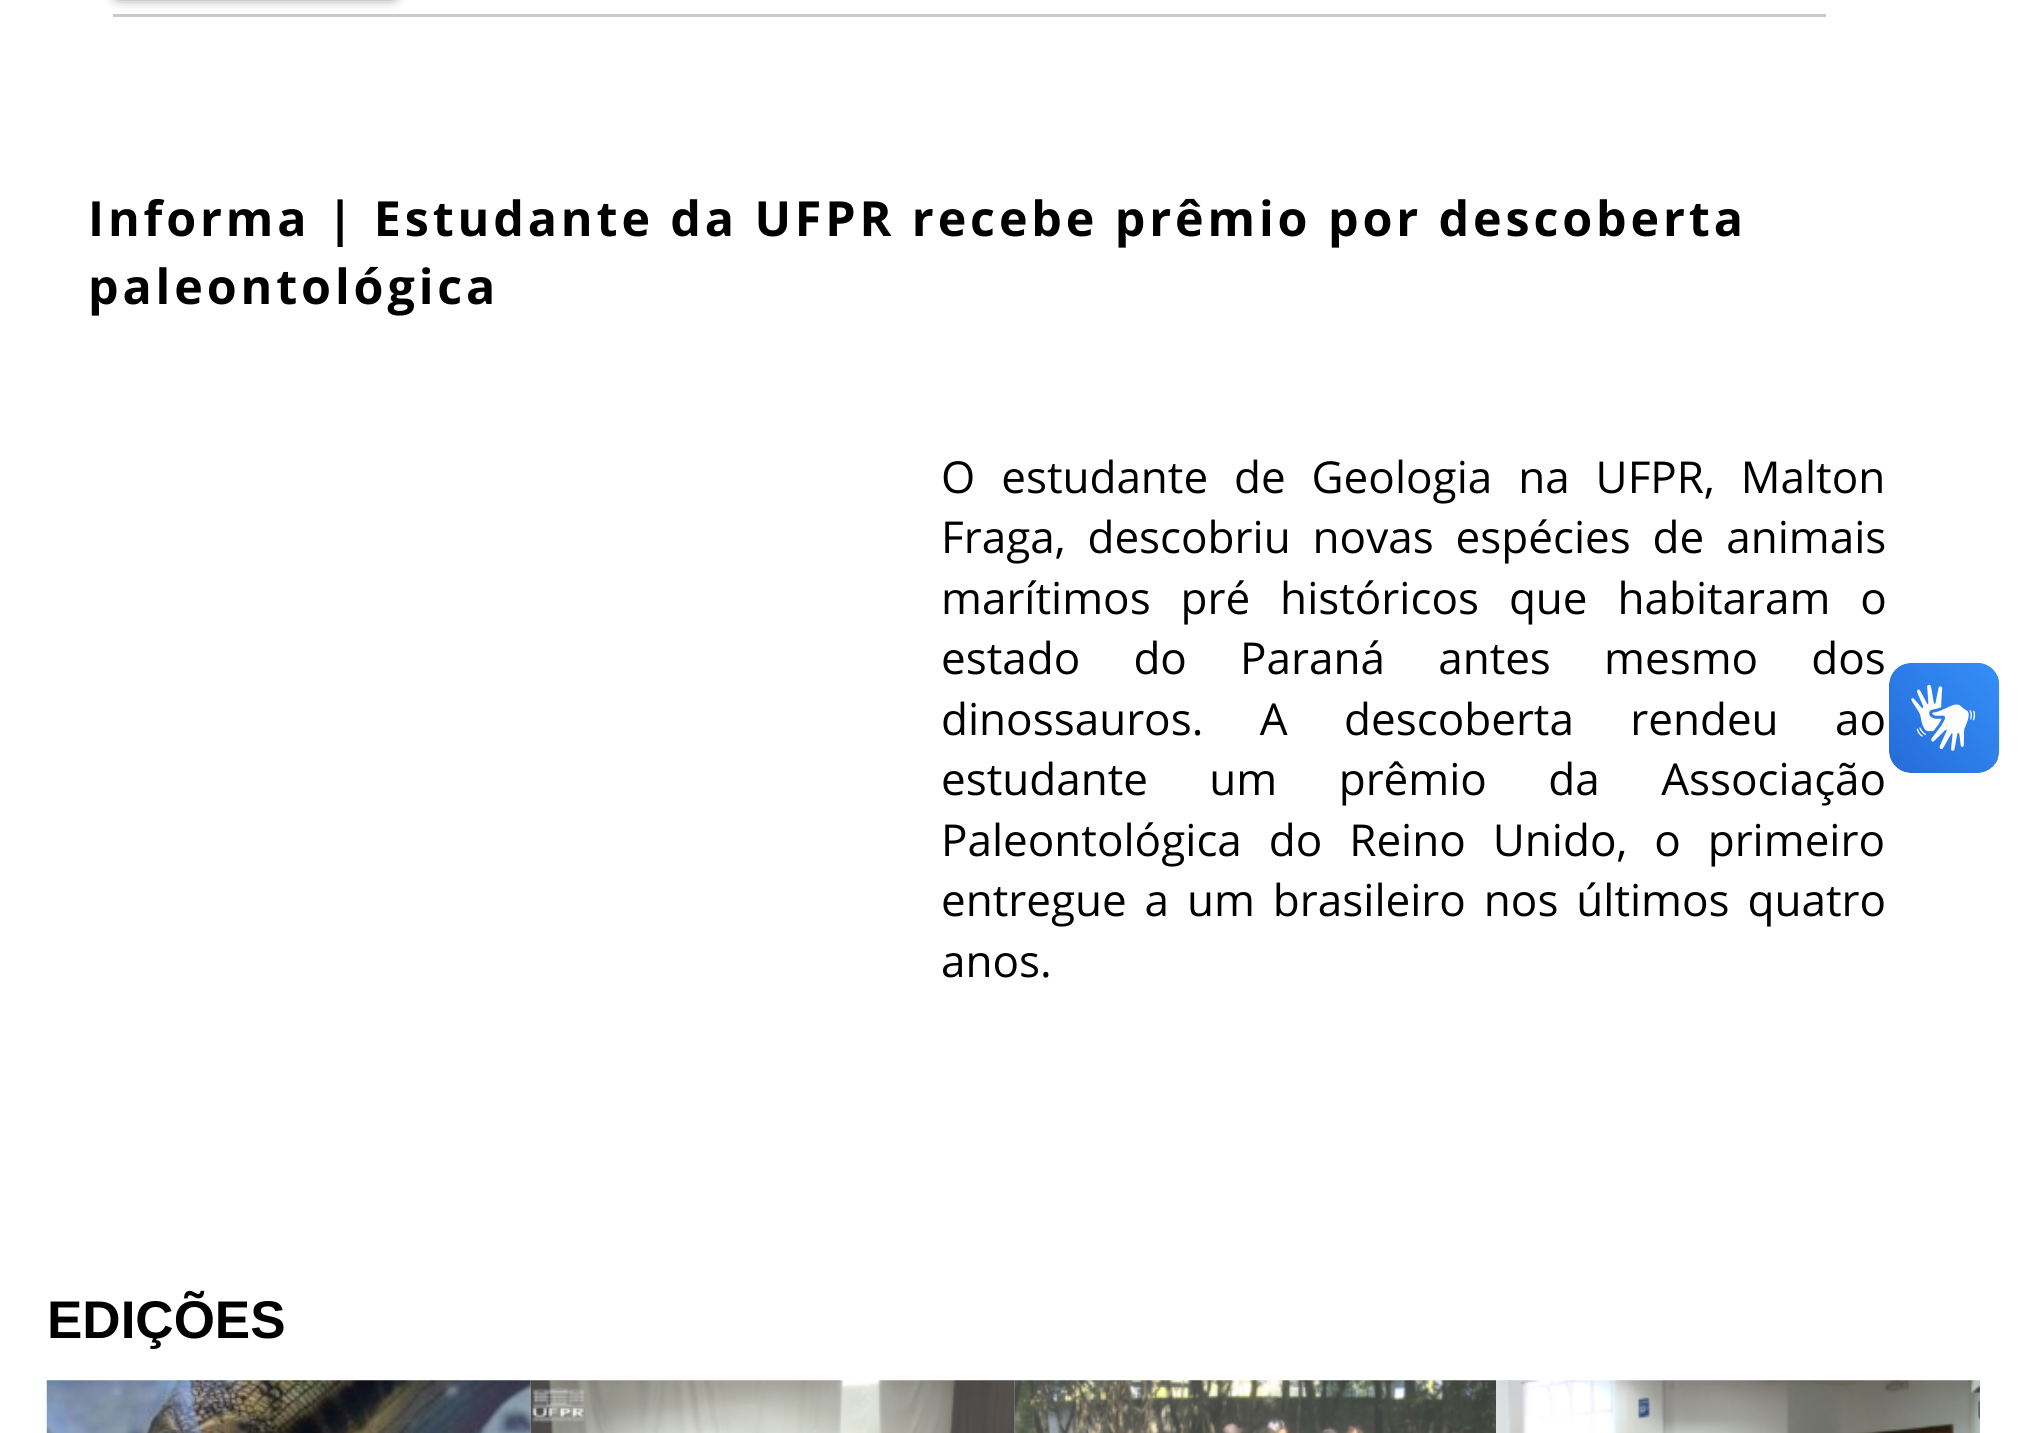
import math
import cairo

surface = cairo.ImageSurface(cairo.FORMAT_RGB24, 2025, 1433)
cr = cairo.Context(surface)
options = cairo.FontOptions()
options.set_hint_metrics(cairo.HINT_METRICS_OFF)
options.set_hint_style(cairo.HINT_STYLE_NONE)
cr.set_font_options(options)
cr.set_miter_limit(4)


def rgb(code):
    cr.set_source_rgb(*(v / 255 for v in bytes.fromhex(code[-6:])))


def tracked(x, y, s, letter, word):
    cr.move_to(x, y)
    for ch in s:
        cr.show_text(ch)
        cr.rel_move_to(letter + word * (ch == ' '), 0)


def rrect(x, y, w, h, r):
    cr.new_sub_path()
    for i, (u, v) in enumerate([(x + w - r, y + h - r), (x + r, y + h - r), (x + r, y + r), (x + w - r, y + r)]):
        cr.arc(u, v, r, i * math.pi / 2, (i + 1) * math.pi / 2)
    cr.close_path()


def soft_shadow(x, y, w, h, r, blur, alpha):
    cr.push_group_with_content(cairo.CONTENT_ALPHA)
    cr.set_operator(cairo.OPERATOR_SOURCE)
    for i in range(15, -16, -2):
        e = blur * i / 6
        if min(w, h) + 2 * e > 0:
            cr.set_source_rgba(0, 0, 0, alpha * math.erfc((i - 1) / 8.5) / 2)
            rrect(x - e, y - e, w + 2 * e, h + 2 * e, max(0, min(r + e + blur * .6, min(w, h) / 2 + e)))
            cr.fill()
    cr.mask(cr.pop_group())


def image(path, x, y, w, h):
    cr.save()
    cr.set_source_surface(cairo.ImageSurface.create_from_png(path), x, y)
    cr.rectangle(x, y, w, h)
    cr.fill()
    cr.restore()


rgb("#ffffff")
cr.paint()
rgb("#cacaca")
cr.rectangle(113, 14, 1713, 3)
cr.fill()
rgb("#000000")
soft_shadow(118, -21, 275, 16, 0, 7, 0.85)
image("img/1.png", 46, 1380, 485, 53)
image("img/2.png", 530, 1380, 485, 53)
image("img/3.png", 1014, 1380, 482, 53)
image("img/4.png", 1496, 1380, 484, 53)
image("img/5.png", 1889, 662, 111, 111)
image("img/6.png", 1889, 663, 110, 110)
cr.select_font_face("Open Sans", cairo.FONT_SLANT_NORMAL, cairo.FONT_WEIGHT_BOLD)
cr.set_font_size(48.4)
rgb("#000000")
tracked(88, 236, "Informa | Estudante da UFPR recebe prêmio por descoberta", 3.87, 0)
tracked(88, 304, "paleontológica", 3.87, 0)
cr.select_font_face("Open Sans")
cr.set_font_size(44)
tracked(941, 493, "O estudante de Geologia na UFPR, Malton", 0, 14.5)
tracked(941, 553, "Fraga, descobriu novas espécies de animais", 0, 10.5)
tracked(941, 614, "marítimos pré históricos que habitaram o", 0, 18.5)
tracked(941, 674, "estado do Paraná antes mesmo dos", 0, 41.75)
tracked(941, 735, "dinossauros. A descoberta rendeu ao", 0, 45)
tracked(941, 795, "estudante um prêmio da Associação", 0, 50)
tracked(941, 856, "Paleontológica do Reino Unido, o primeiro", 0, 15.5)
tracked(941, 916, "entregue a um brasileiro nos últimos quatro", 0, 6.5)
cr.move_to(941, 977)
cr.show_text("anos.")
cr.select_font_face("Liberation Sans", cairo.FONT_SLANT_NORMAL, cairo.FONT_WEIGHT_BOLD)
cr.set_font_size(53)
cr.move_to(47, 1338)
cr.show_text("EDIÇÕES")
surface.write_to_png("page.png")
